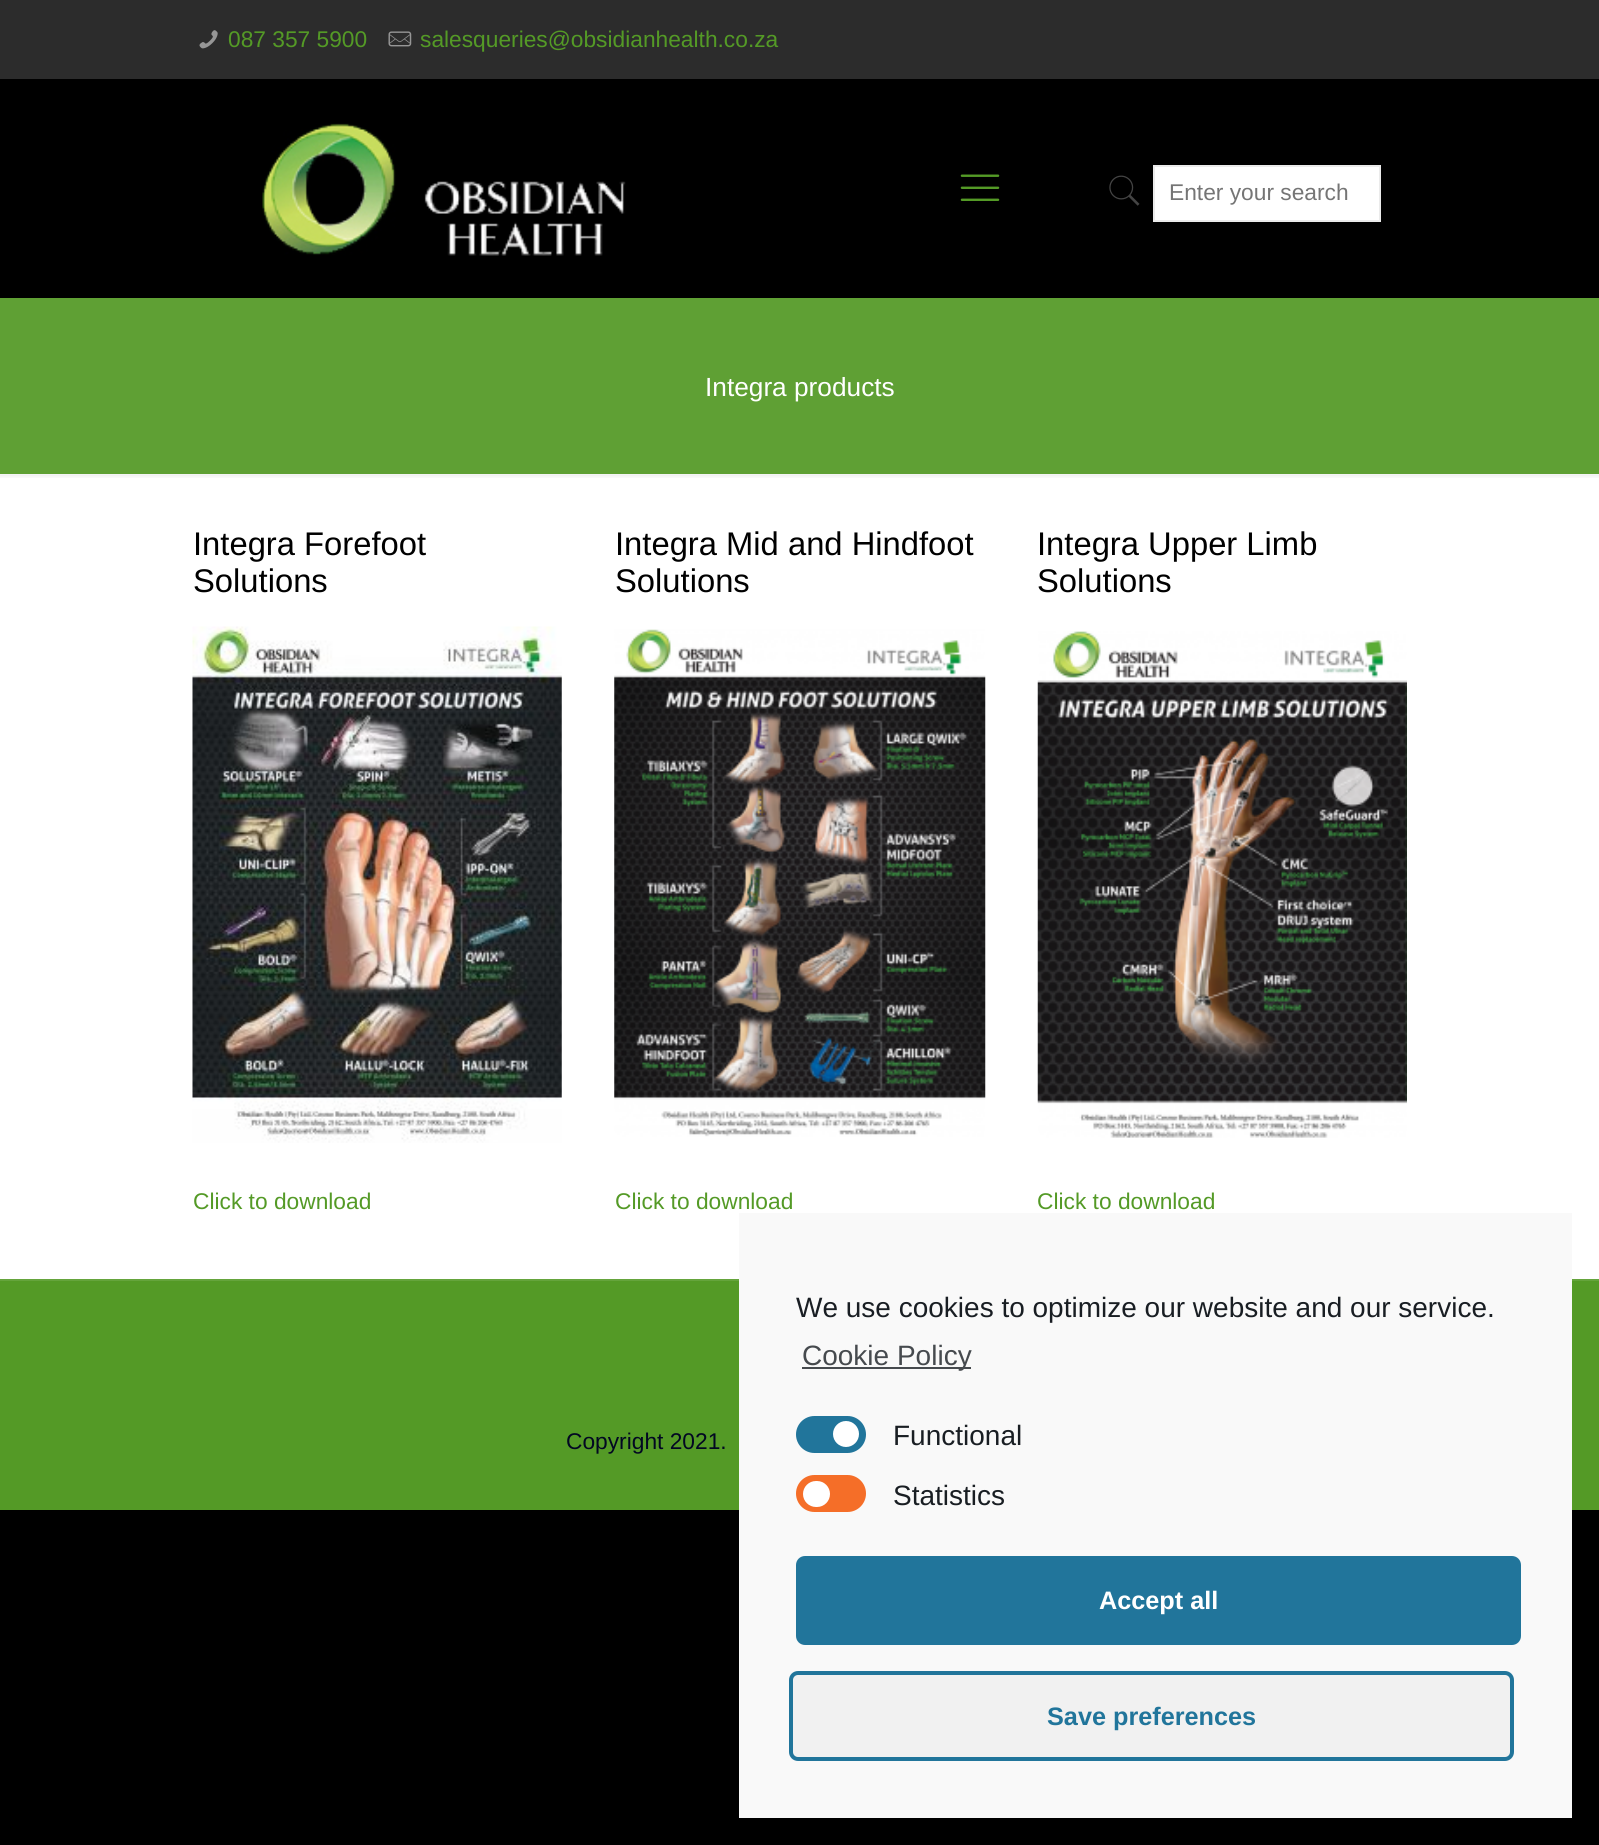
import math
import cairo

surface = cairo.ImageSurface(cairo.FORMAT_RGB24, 1599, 1845)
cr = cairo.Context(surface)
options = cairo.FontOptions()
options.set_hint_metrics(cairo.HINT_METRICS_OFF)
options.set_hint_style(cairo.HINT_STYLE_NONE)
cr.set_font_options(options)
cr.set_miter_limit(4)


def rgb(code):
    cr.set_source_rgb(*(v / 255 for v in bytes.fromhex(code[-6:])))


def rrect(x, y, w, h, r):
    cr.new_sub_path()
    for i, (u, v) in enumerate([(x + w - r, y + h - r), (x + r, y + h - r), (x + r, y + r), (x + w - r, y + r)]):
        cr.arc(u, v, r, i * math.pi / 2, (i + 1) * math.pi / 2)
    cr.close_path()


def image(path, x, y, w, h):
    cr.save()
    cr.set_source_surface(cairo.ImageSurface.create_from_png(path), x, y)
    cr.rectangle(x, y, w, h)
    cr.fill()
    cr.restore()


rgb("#000000")
cr.paint()
rgb("#ffffff")
cr.rectangle(0, 474, 1599, 805)
cr.fill()
rgb("#2c2c2c")
cr.rectangle(0, 0, 1599, 79)
cr.fill()
image("img/1.png", 199, 30, 19, 19)
image("img/2.png", 388, 31, 24, 16)
image("img/3.png", 262, 123, 364, 133)
image("img/4.png", 960, 174, 40, 27)
image("img/5.png", 1109, 175, 31, 31)
rgb("#ffffff")
cr.rectangle(1154, 166, 226, 55)
cr.fill_preserve()
rgb("#ebebeb")
cr.stroke()
rgb("#5fa034")
cr.rectangle(0, 298, 1599, 176)
cr.fill()
image("img/6.png", 0, 474, 1599, 4)
image("img/7.png", 192, 626, 370, 517)
image("img/8.png", 614, 629, 372, 508)
image("img/9.png", 1037, 631, 370, 507)
for x, y, w, h, color in [
    (0, 1281, 1599, 229, "#549a26"),
    (0, 1279, 1599, 2, "#65a43c"),
    (739, 1213, 833, 605, "#f9f9f9"),
    (802, 1367, 169, 2, "#464a4e"),
]:
    rgb(color)
    cr.rectangle(x, y, w, h)
    cr.fill()
rgb("#21759b")
rrect(796, 1416, 70, 37, 18.5)
cr.fill()
rgb("#ffffff")
cr.arc(846, 1434, 13, 0, 2 * math.pi)
cr.fill()
rgb("#f56e28")
rrect(796, 1475, 70, 37, 18.5)
cr.fill()
rgb("#ffffff")
rrect(803, 1481, 27, 26, 13)
cr.fill()
rgb("#21759b")
rrect(798, 1558, 721, 85, 7)
cr.fill_preserve()
cr.set_line_width(4)
cr.stroke()
rgb("#f1f1f1")
rrect(791, 1673, 721, 86, 7)
cr.fill_preserve()
rgb("#21759b")
cr.stroke()
cr.select_font_face("Liberation Sans")
cr.set_font_size(22.75)
rgb("#549a26")
cr.move_to(228, 47)
cr.show_text("087 357 5900")
cr.move_to(420, 47)
cr.show_text("salesqueries@obsidianhealth.co.za")
rgb("#757575")
cr.move_to(1169, 200)
cr.show_text("Enter your search")
cr.set_font_size(26.25)
rgb("#ffffff")
cr.move_to(705, 396)
cr.show_text("Integra products")
cr.set_font_size(32.75)
rgb("#000000")
cr.move_to(193, 555)
cr.show_text("Integra Forefoot")
cr.move_to(193, 592)
cr.show_text("Solutions")
cr.set_font_size(22.75)
rgb("#549a26")
cr.move_to(193, 1209)
cr.show_text("Click to download")
cr.set_font_size(32.75)
rgb("#000000")
cr.move_to(615, 555)
cr.show_text("Integra Mid and Hindfoot")
cr.move_to(615, 592)
cr.show_text("Solutions")
cr.set_font_size(22.75)
rgb("#549a26")
cr.move_to(615, 1209)
cr.show_text("Click to download")
cr.set_font_size(32.75)
rgb("#000000")
cr.move_to(1037, 555)
cr.show_text("Integra Upper Limb")
cr.move_to(1037, 592)
cr.show_text("Solutions")
cr.set_font_size(22.75)
rgb("#549a26")
cr.move_to(1037, 1209)
cr.show_text("Click to download")
rgb("#020722")
cr.move_to(566, 1449)
cr.show_text("Copyright 2021.")
cr.set_font_size(28)
rgb("#191e23")
cr.move_to(796, 1317)
cr.show_text("We use cookies to optimize our website and our service.")
rgb("#464a4e")
cr.move_to(802, 1365)
cr.show_text("Cookie Policy")
rgb("#191e23")
cr.move_to(893, 1445)
cr.show_text("Functional")
cr.move_to(893, 1505)
cr.show_text("Statistics")
cr.select_font_face("Liberation Sans", cairo.FONT_SLANT_NORMAL, cairo.FONT_WEIGHT_BOLD)
cr.set_font_size(25.25)
rgb("#ffffff")
cr.move_to(1099, 1609)
cr.show_text("Accept all")
rgb("#21759b")
cr.move_to(1047, 1725)
cr.show_text("Save preferences")
surface.write_to_png("page.png")
